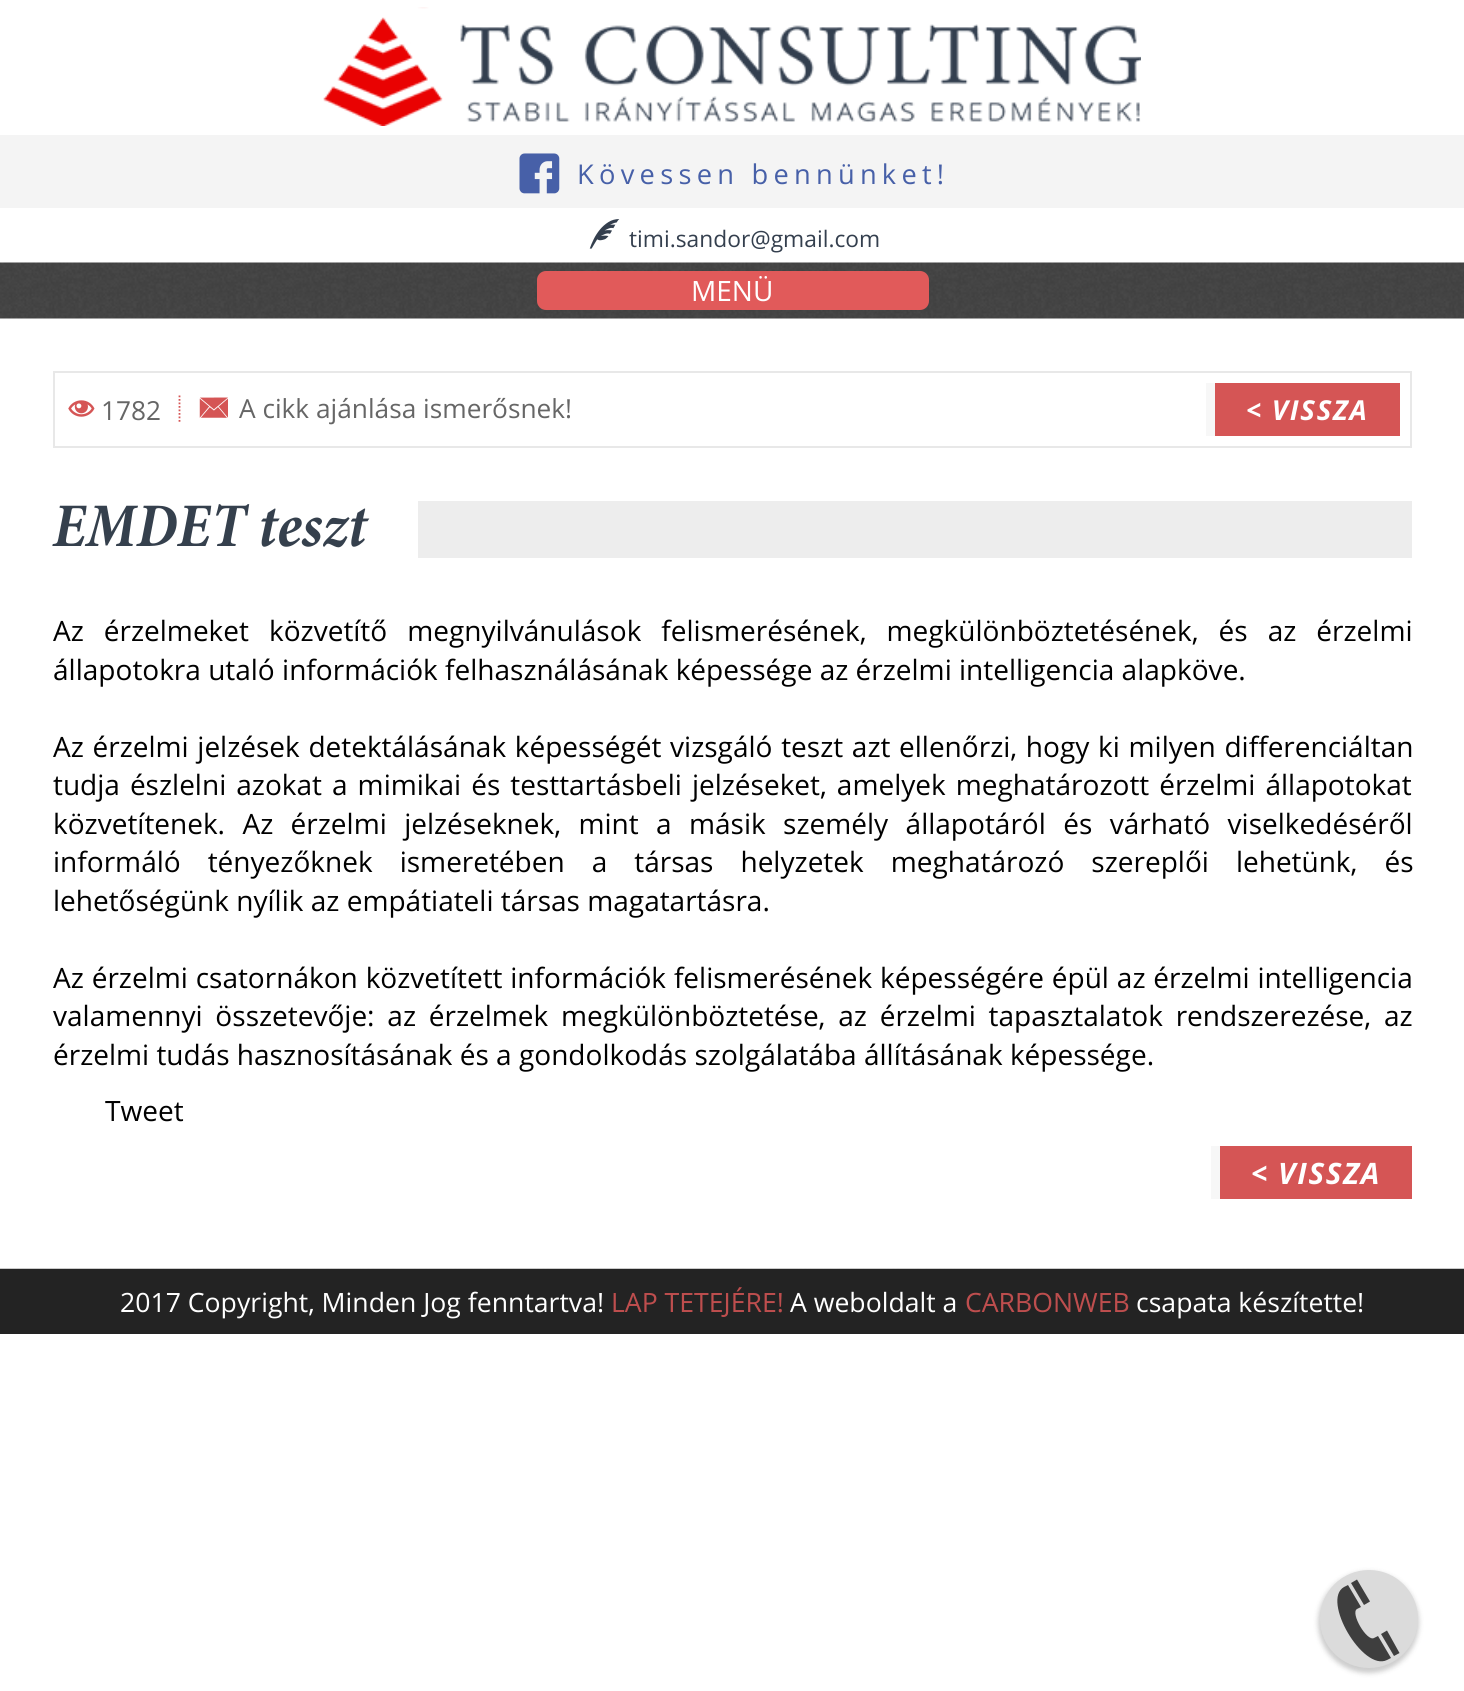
import math
import cairo

surface = cairo.ImageSurface(cairo.FORMAT_RGB24, 1464, 1691)
cr = cairo.Context(surface)
options = cairo.FontOptions()
options.set_hint_metrics(cairo.HINT_METRICS_OFF)
options.set_hint_style(cairo.HINT_STYLE_NONE)
cr.set_font_options(options)
cr.set_miter_limit(4)


def rgb(code):
    cr.set_source_rgb(*(v / 255 for v in bytes.fromhex(code[-6:])))


def tracked(x, y, s, letter, word):
    cr.move_to(x, y)
    for ch in s:
        cr.show_text(ch)
        cr.rel_move_to(letter + word * (ch == ' '), 0)


def rrect(x, y, w, h, r):
    cr.new_sub_path()
    for i, (u, v) in enumerate([(x + w - r, y + h - r), (x + r, y + h - r), (x + r, y + r), (x + w - r, y + r)]):
        cr.arc(u, v, r, i * math.pi / 2, (i + 1) * math.pi / 2)
    cr.close_path()


def soft_shadow(x, y, w, h, r, blur, alpha):
    cr.push_group_with_content(cairo.CONTENT_ALPHA)
    cr.set_operator(cairo.OPERATOR_SOURCE)
    for i in range(15, -16, -2):
        e = blur * i / 6
        if min(w, h) + 2 * e > 0:
            cr.set_source_rgba(0, 0, 0, alpha * math.erfc((i - 1) / 8.5) / 2)
            rrect(x - e, y - e, w + 2 * e, h + 2 * e, max(0, min(r + e + blur * .6, min(w, h) / 2 + e)))
            cr.fill()
    cr.mask(cr.pop_group())


def image(path, x, y, w, h):
    cr.save()
    cr.set_source_surface(cairo.ImageSurface.create_from_png(path), x, y)
    cr.rectangle(x, y, w, h)
    cr.fill()
    cr.restore()


rgb("#ffffff")
cr.paint()
image("img/1.png", 323, 7, 818, 119)
rgb("#f4f4f4")
cr.rectangle(0, 135, 1464, 73)
cr.fill()
image("img/2.png", 519, 153, 41, 41)
image("img/3.png", 589, 219, 31, 30)
image("img/4.png", 0, 262, 1464, 57)
rgb("#e15a5a")
rrect(537, 271, 392, 39, 9)
cr.fill()
cr.rectangle(54, 372, 1357, 75)
rgb("#e8e8e8")
cr.stroke()
cr.new_path()
cr.move_to(179.5, 395.5)
cr.line_to(179.5, 423.5)
rgb("#d55555")
cr.set_line_width(1.8)
cr.set_dash([1.75, 1.75])
cr.stroke()
image("img/5.png", 68, 400, 27, 17)
image("img/6.png", 199, 397, 29, 21)
for x, y, w, h, color in [
    (1215, 383, 185, 53, "#d55555"),
    (1206, 383, 9, 53, "#f7f7f7"),
    (418, 501, 994, 57, "#ededed"),
]:
    rgb(color)
    cr.rectangle(x, y, w, h)
    cr.fill()
image("img/7.png", 52, 504, 318, 44)
rgb("#d55555")
cr.rectangle(1220, 1146, 192, 53)
cr.fill()
rgb("#f7f7f7")
cr.rectangle(1211, 1146, 9, 53)
cr.fill()
image("img/8.png", 0, 1268, 1464, 1)
rgb("#232323")
cr.rectangle(0, 1269, 1464, 65)
cr.fill()
rgb("#000000")
soft_shadow(1318, 1572, 101, 101, 50.5, 2.5, 0.2)
rgb("#dbdbdb")
cr.arc(1369, 1619, 49, 0, 2 * math.pi)
cr.fill()
rgb("#3e3e3e")
cr.new_path()
cr.move_to(1391, 1658)
cr.line_to(1387, 1660)
cr.curve_to(1363, 1672, 1321, 1600, 1344, 1587)
cr.line_to(1348, 1585)
cr.line_to(1361, 1607)
cr.line_to(1357, 1609)
cr.curve_to(1350, 1613, 1367, 1642, 1374, 1638)
cr.line_to(1378, 1636)
cr.close_path()
cr.fill()
cr.new_path()
cr.move_to(1357, 1579.5)
cr.line_to(1351, 1583)
cr.line_to(1364, 1605)
cr.line_to(1370, 1601.5)
cr.close_path()
cr.fill()
cr.new_path()
cr.move_to(1387, 1630.5)
cr.line_to(1381, 1634)
cr.line_to(1394, 1656)
cr.line_to(1399.5, 1653)
cr.close_path()
cr.fill()
cr.select_font_face("Open Sans")
cr.set_font_size(27.25)
rgb("#4760a8")
tracked(577, 184, "Kövessen bennünket!", 5.25, 0)
cr.set_font_size(22.75)
rgb("#343f4e")
cr.move_to(629, 247)
cr.show_text("timi.sandor@gmail.com")
cr.set_font_size(28)
rgb("#ffffff")
cr.move_to(691, 301)
cr.show_text("MENÜ")
cr.set_font_size(26.25)
rgb("#666666")
cr.move_to(101, 420)
cr.show_text("1782")
cr.move_to(239, 418)
cr.show_text("A cikk ajánlása ismerősnek!")
cr.select_font_face("Open Sans", cairo.FONT_SLANT_ITALIC, cairo.FONT_WEIGHT_BOLD)
cr.set_font_size(27.5)
rgb("#ffffff")
tracked(1246, 420, "< VISSZA", 1.75, 0)
cr.select_font_face("Open Sans")
cr.set_font_size(28)
rgb("#000000")
tracked(53, 641, "Az érzelmeket közvetítő megnyilvánulások felismerésének, megkülönböztetésének, és az érzelmi", 0, 12.75)
cr.move_to(53, 680)
cr.show_text("állapotokra utaló információk felhasználásának képessége az érzelmi intelligencia alapköve.")
tracked(53, 757, "Az érzelmi jelzések detektálásának képességét vizsgáló teszt azt ellenőrzi, hogy ki milyen differenciáltan", 0, 1.4)
tracked(53, 795, "tudja észlelni azokat a mimikai és testtartásbeli jelzéseket, amelyek meghatározott érzelmi állapotokat", 0, 2.75)
tracked(53, 834, "közvetítenek. Az érzelmi jelzéseknek, mint a másik személy állapotáról és várható viselkedéséről", 0, 10.1)
tracked(53, 872, "informáló tényezőknek ismeretében a társas helyzetek meghatározó szereplői lehetünk, és", 0, 19.75)
cr.move_to(53, 911)
cr.show_text("lehetőségünk nyílik az empátiateli társas magatartásra.")
tracked(53, 988, "Az érzelmi csatornákon közvetített információk felismerésének képességére épül az érzelmi intelligencia", 0, 0.6)
tracked(53, 1026, "valamennyi összetevője: az érzelmek megkülönböztetése, az érzelmi tapasztalatok rendszerezése, az", 0, 5.5)
cr.move_to(53, 1065)
cr.show_text("érzelmi tudás hasznosításának és a gondolkodás szolgálatába állításának képessége.")
cr.move_to(105, 1121)
cr.show_text("Tweet")
cr.select_font_face("Open Sans", cairo.FONT_SLANT_ITALIC, cairo.FONT_WEIGHT_BOLD)
cr.set_font_size(29.5)
rgb("#ffffff")
tracked(1251, 1184, "<", 1.75, 0)
tracked(1278, 1184, "VISSZA", 1.75, 0)
cr.select_font_face("Open Sans")
cr.set_font_size(26.6)
cr.move_to(120, 1312)
cr.show_text("2017 Copyright, Minden Jog fenntartva!")
rgb("#be4e4e")
cr.move_to(611, 1312)
cr.show_text("LAP TETEJÉRE!")
rgb("#ffffff")
cr.move_to(790, 1312)
cr.show_text("A weboldalt a")
rgb("#be4e4e")
cr.move_to(965, 1312)
cr.show_text("CARBONWEB")
rgb("#ffffff")
cr.move_to(1136, 1312)
cr.show_text("csapata készítette!")
surface.write_to_png("page.png")
